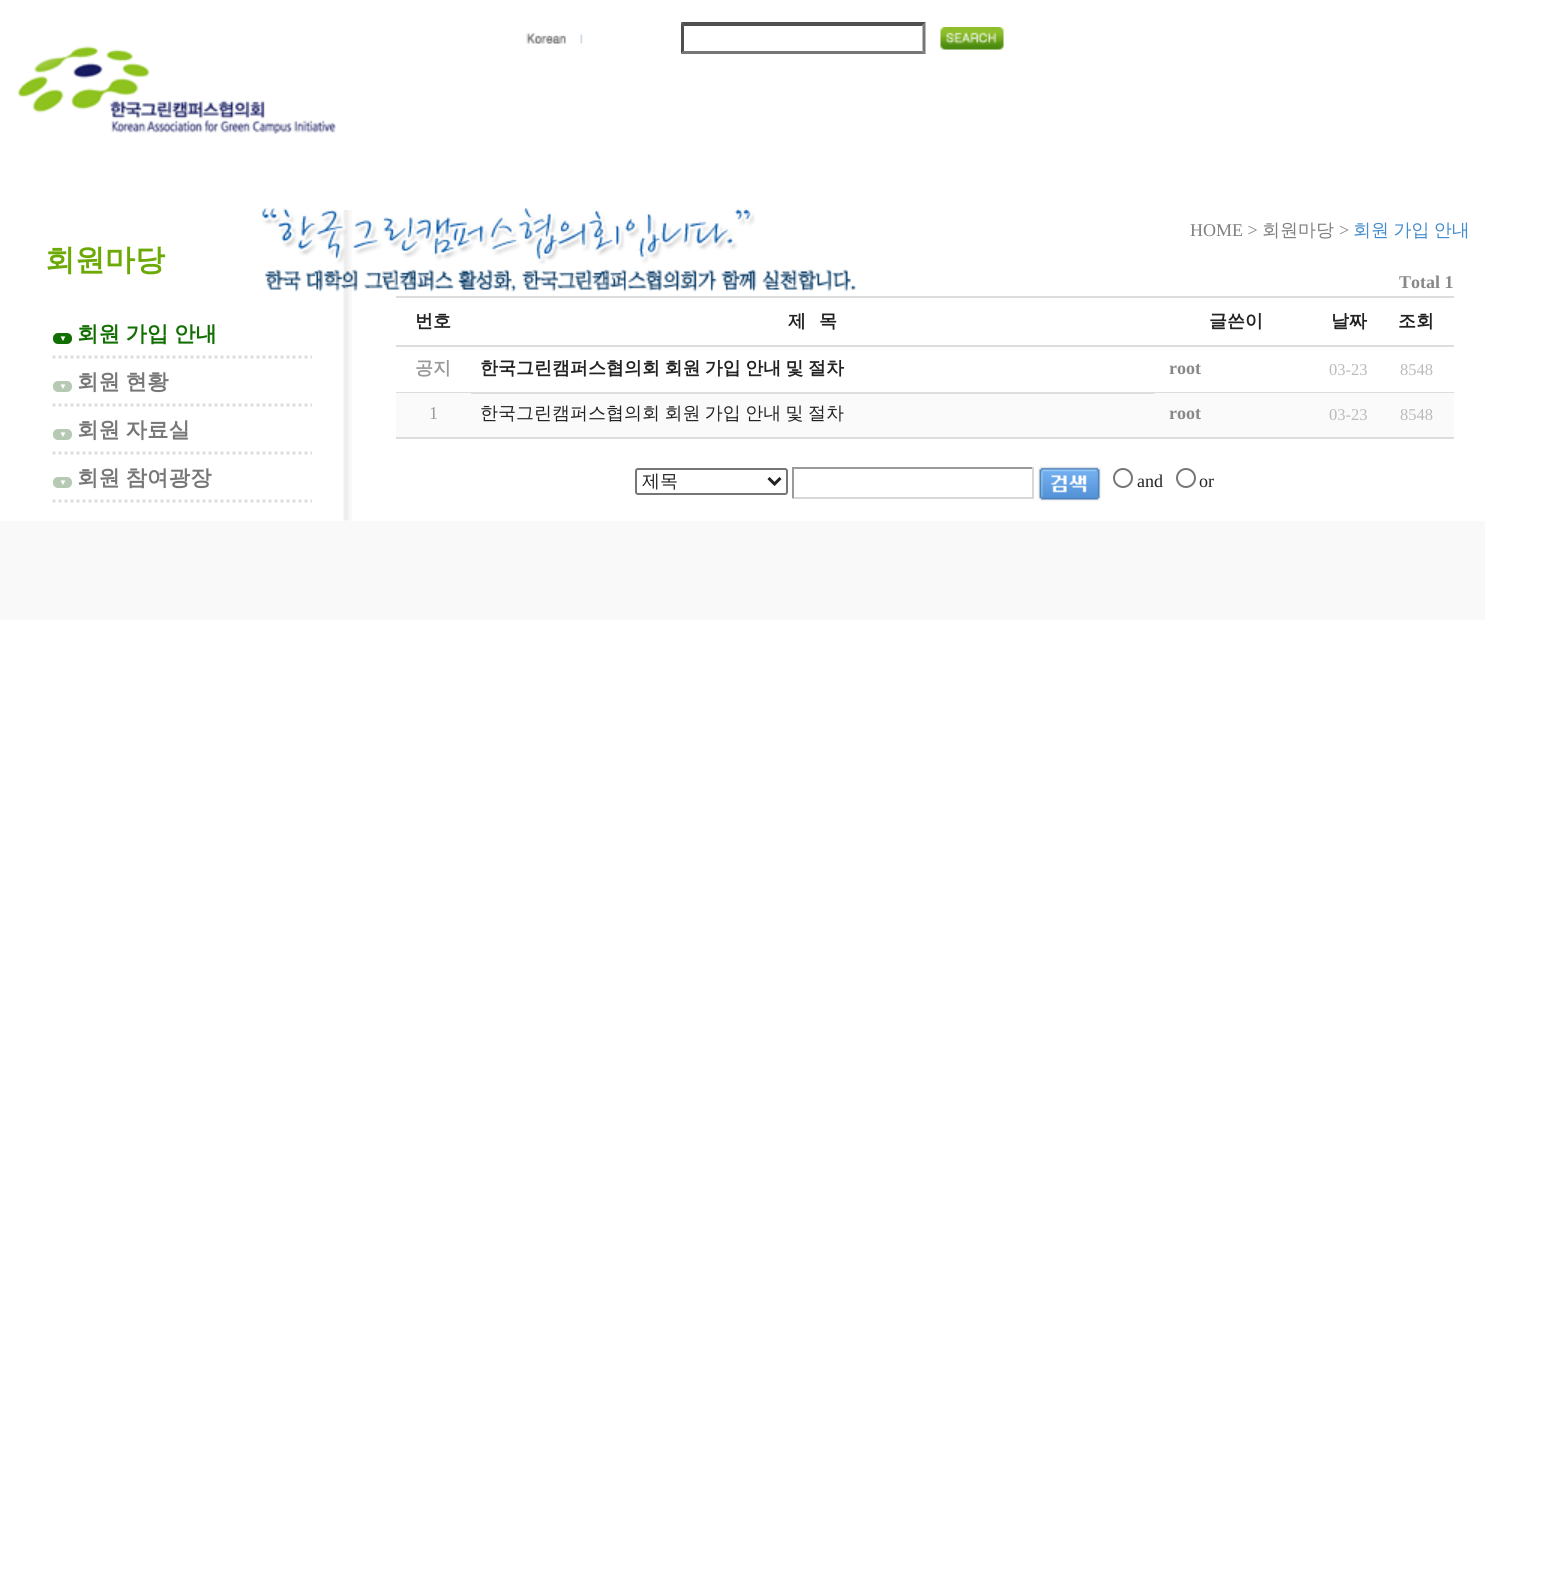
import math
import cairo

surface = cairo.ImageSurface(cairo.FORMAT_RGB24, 1554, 1575)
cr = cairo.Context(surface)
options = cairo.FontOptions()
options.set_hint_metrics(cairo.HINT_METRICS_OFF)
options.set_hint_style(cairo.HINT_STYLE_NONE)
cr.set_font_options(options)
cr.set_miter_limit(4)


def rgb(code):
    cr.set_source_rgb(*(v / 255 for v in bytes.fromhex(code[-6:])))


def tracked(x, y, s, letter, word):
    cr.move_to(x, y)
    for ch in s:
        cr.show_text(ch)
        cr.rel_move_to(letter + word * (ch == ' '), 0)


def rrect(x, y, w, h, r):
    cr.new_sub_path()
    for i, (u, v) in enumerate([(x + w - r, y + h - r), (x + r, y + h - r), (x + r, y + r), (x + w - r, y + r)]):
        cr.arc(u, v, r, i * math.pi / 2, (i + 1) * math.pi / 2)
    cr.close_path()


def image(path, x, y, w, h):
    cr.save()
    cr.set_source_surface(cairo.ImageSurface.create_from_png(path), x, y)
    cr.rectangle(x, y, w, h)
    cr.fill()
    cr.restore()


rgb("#ffffff")
cr.paint()
image("img/5.png", 343, 210, 9, 311)
image("img/1.png", 262, 208, 594, 84)
image("img/2.png", 526, 32, 57, 12)
rgb("#4f4f4f")
cr.new_path()
cr.move_to(681, 22)
cr.line_to(926, 22)
cr.line_to(922, 26)
cr.line_to(684, 26)
cr.close_path()
cr.fill()
rgb("#767676")
cr.new_path()
cr.move_to(925.5, 22.5)
cr.line_to(925.5, 54)
cr.line_to(922.5, 51)
cr.line_to(922.5, 25.5)
cr.close_path()
cr.fill()
cr.new_path()
cr.move_to(926, 54)
cr.line_to(681, 54)
cr.line_to(684, 51)
cr.line_to(922, 51)
cr.close_path()
cr.fill()
rgb("#4f4f4f")
cr.new_path()
cr.move_to(681, 54)
cr.line_to(681, 22.5)
cr.line_to(684, 25.5)
cr.line_to(684, 51)
cr.close_path()
cr.fill()
image("img/3.png", 940, 27, 64, 23)
image("img/4.png", 18, 46, 318, 88)
cr.new_path()
cr.move_to(52.5, 357)
cr.line_to(312, 357)
rgb("#dddddd")
cr.set_line_width(3)
cr.set_dash([3, 3])
cr.stroke()
rgb("#116e00")
rrect(53, 333, 19, 11, 5)
cr.fill()
cr.new_path()
cr.move_to(52.5, 405)
cr.line_to(312, 405)
rgb("#dddddd")
cr.stroke()
rgb("#b6c9b3")
rrect(53, 381, 19, 11, 5)
cr.fill()
cr.new_path()
cr.move_to(52.5, 453)
cr.line_to(312, 453)
rgb("#dddddd")
cr.stroke()
rgb("#b6c9b3")
rrect(53, 429, 19, 11, 5)
cr.fill()
cr.new_path()
cr.move_to(52.5, 501)
cr.line_to(312, 501)
rgb("#dddddd")
cr.stroke()
rgb("#b6c9b3")
rrect(53, 477, 19, 11, 5)
cr.fill()
for x, y, w, h, color in [
    (396, 296, 1058, 2, "#dddddd"),
    (396, 345, 1058, 2, "#dddddd"),
    (396, 392, 75, 1, "#dddddd"),
    (396, 393, 1058, 44, "#fafafa"),
    (471, 392, 683, 2, "#dddddd"),
    (1154, 392, 300, 1, "#dddddd"),
    (396, 437, 75, 2, "#dddddd"),
    (471, 437, 983, 2, "#dddddd"),
]:
    rgb(color)
    cr.rectangle(x, y, w, h)
    cr.fill()
rrect(636, 469, 151, 25, 2)
rgb("#767676")
cr.set_line_width(2)
cr.set_dash([])
cr.stroke()
cr.new_path()
cr.move_to(768.5, 478)
cr.line_to(774.5, 484)
cr.line_to(780.5, 478)
rgb("#222222")
cr.set_line_width(3)
cr.stroke()
for x, y, w, h, color in [
    (792, 467, 242, 2, "#9a9a9a"),
    (1032, 467, 2, 31, "#d8d8d8"),
    (792, 497, 242, 2, "#d8d8d8"),
    (792, 467, 2, 31, "#9a9a9a"),
]:
    rgb(color)
    cr.rectangle(x, y, w, h)
    cr.fill()
image("img/6.png", 1038, 466, 63, 35)
cr.arc(1123, 478, 9, 0, 2 * math.pi)
rgb("#767676")
cr.set_line_width(2)
cr.stroke()
cr.arc(1186, 478, 9, 0, 2 * math.pi)
cr.stroke()
rgb("#f9f9f9")
cr.rectangle(0, 521, 1485, 99)
cr.fill()
cr.select_font_face("WenQuanYi Zen Hei", cairo.FONT_SLANT_NORMAL, cairo.FONT_WEIGHT_BOLD)
cr.set_font_size(30)
rgb("#6ca904")
cr.move_to(45, 270)
cr.show_text("회원마당")
cr.select_font_face("Liberation Serif", cairo.FONT_SLANT_NORMAL, cairo.FONT_WEIGHT_BOLD)
cr.set_font_size(8)
rgb("#ffffff")
cr.move_to(59, 341)
cr.show_text("▼")
cr.select_font_face("WenQuanYi Zen Hei", cairo.FONT_SLANT_NORMAL, cairo.FONT_WEIGHT_BOLD)
cr.set_font_size(21.5)
rgb("#116e00")
tracked(77, 341, "회원 가입 안내", 0, -1)
cr.select_font_face("Liberation Serif", cairo.FONT_SLANT_NORMAL, cairo.FONT_WEIGHT_BOLD)
cr.set_font_size(8)
rgb("#ffffff")
cr.move_to(59, 389)
cr.show_text("▼")
cr.select_font_face("WenQuanYi Zen Hei", cairo.FONT_SLANT_NORMAL, cairo.FONT_WEIGHT_BOLD)
cr.set_font_size(21.5)
rgb("#777777")
tracked(77, 389, "회원 현황", 0, -1)
cr.select_font_face("Liberation Serif", cairo.FONT_SLANT_NORMAL, cairo.FONT_WEIGHT_BOLD)
cr.set_font_size(8)
rgb("#ffffff")
cr.move_to(59, 437)
cr.show_text("▼")
cr.select_font_face("WenQuanYi Zen Hei", cairo.FONT_SLANT_NORMAL, cairo.FONT_WEIGHT_BOLD)
cr.set_font_size(21.5)
rgb("#777777")
tracked(77, 437, "회원 자료실", 0, -1)
cr.select_font_face("Liberation Serif", cairo.FONT_SLANT_NORMAL, cairo.FONT_WEIGHT_BOLD)
cr.set_font_size(8)
rgb("#ffffff")
cr.move_to(59, 485)
cr.show_text("▼")
cr.select_font_face("WenQuanYi Zen Hei", cairo.FONT_SLANT_NORMAL, cairo.FONT_WEIGHT_BOLD)
cr.set_font_size(21.5)
rgb("#777777")
tracked(77, 485, "회원 참여광장", 0, -1)
cr.select_font_face("Liberation Serif")
cr.set_font_size(18)
rgb("#808080")
cr.move_to(1190, 236)
cr.show_text("HOME >")
cr.select_font_face("WenQuanYi Zen Hei Medium")
cr.move_to(1262, 236)
cr.show_text("회원마당")
cr.select_font_face("Liberation Serif")
cr.move_to(1339, 236)
cr.show_text(">")
cr.select_font_face("WenQuanYi Zen Hei Medium")
rgb("#448ccd")
tracked(1353, 236, "회원 가입 안내", 0, -1)
cr.select_font_face("Liberation Serif", cairo.FONT_SLANT_NORMAL, cairo.FONT_WEIGHT_BOLD)
rgb("#888888")
cr.move_to(1399, 288)
cr.show_text("Total 1")
cr.select_font_face("WenQuanYi Zen Hei", cairo.FONT_SLANT_NORMAL, cairo.FONT_WEIGHT_BOLD)
rgb("#222222")
for x, y, s in [
    (415, 327, "번호"),
    (788, 327, "제"),
    (819, 327, "목"),
    (1209, 327, "글쓴이"),
    (1331, 327, "날짜"),
    (1398, 327, "조회"),
]:
    cr.move_to(x, y)
    cr.show_text(s)
rgb("#999999")
cr.move_to(415, 374)
cr.show_text("공지")
rgb("#222222")
tracked(480, 374, "한국그린캠퍼스협의회 회원 가입 안내 및 절차", 0, -1)
cr.select_font_face("Liberation Serif", cairo.FONT_SLANT_NORMAL, cairo.FONT_WEIGHT_BOLD)
rgb("#888888")
cr.move_to(1169, 374)
cr.show_text("root")
cr.select_font_face("Liberation Serif")
cr.set_font_size(16.5)
rgb("#bababa")
cr.move_to(1329, 375)
cr.show_text("03-23")
cr.move_to(1400, 375)
cr.show_text("8548")
cr.set_font_size(18)
rgb("#999999")
cr.move_to(429, 419)
cr.show_text("1")
cr.select_font_face("WenQuanYi Zen Hei Medium")
rgb("#222222")
tracked(480, 419, "한국그린캠퍼스협의회 회원 가입 안내 및 절차", 0, -1)
cr.select_font_face("Liberation Serif", cairo.FONT_SLANT_NORMAL, cairo.FONT_WEIGHT_BOLD)
rgb("#888888")
cr.move_to(1169, 419)
cr.show_text("root")
cr.select_font_face("Liberation Serif")
cr.set_font_size(16.5)
rgb("#bababa")
cr.move_to(1329, 420)
cr.show_text("03-23")
cr.move_to(1400, 420)
cr.show_text("8548")
cr.select_font_face("WenQuanYi Zen Hei Medium")
cr.set_font_size(18)
rgb("#222222")
cr.move_to(642, 487)
cr.show_text("제목")
cr.select_font_face("Liberation Serif")
cr.move_to(1137, 487)
cr.show_text("and")
cr.move_to(1199, 487)
cr.show_text("or")
surface.write_to_png("page.png")
